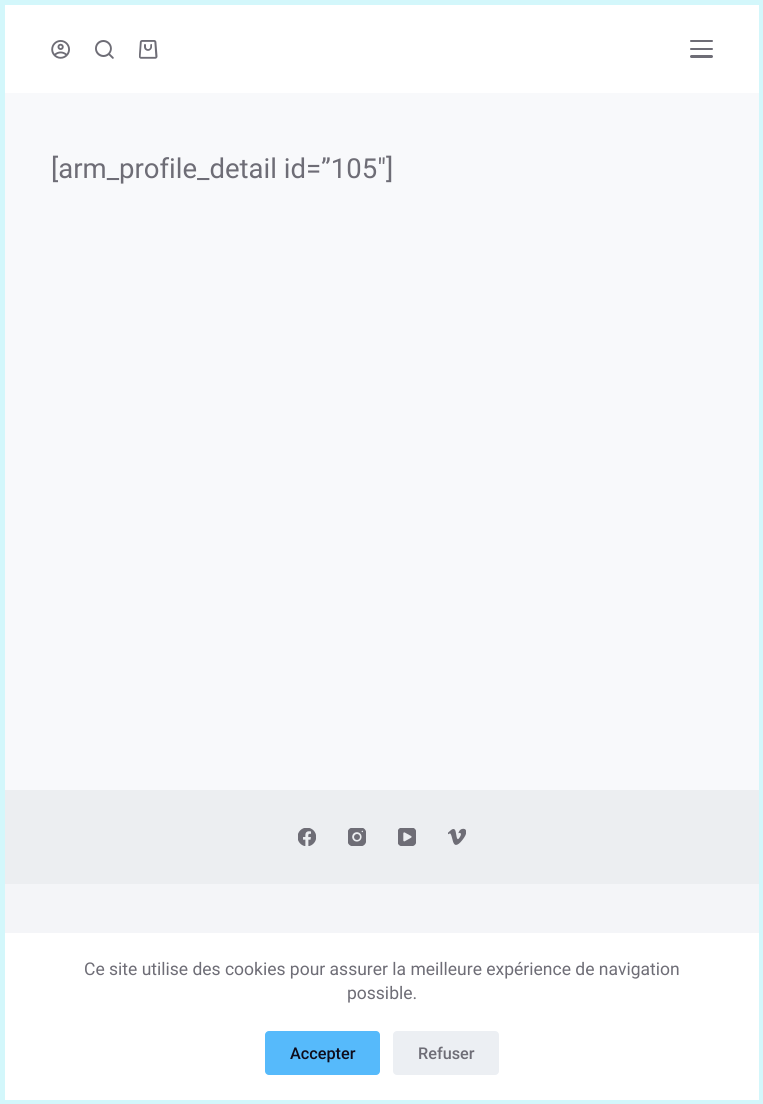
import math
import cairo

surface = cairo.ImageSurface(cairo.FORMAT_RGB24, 763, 1104)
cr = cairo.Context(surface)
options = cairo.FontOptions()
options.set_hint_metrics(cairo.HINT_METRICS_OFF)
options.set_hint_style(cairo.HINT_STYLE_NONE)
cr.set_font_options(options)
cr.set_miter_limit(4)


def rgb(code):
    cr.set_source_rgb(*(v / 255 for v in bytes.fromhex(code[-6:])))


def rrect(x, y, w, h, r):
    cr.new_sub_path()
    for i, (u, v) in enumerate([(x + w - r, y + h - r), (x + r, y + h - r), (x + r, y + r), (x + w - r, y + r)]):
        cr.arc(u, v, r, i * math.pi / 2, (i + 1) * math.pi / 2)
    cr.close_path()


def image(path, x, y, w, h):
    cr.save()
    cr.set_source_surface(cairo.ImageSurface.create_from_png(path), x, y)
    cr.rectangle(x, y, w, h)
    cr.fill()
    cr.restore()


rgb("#f8f9fb")
cr.paint()
cr.rectangle(2.5, 2.5, 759, 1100)
rgb("#d3f7fb")
cr.set_line_width(5)
cr.stroke()
rgb("#ffffff")
cr.rectangle(5, 5, 754, 88)
cr.fill()
image("img/1.png", 51, 40, 19, 19)
image("img/2.png", 95, 40, 19, 19)
image("img/3.png", 139, 40, 19, 19)
rgb("#6e6d76")
rrect(690, 40, 23, 2, 1)
cr.fill()
rrect(690, 48, 23, 2, 1)
cr.fill()
rrect(690, 55, 23, 3, 1.5)
cr.fill()
rgb("#f4f5f8")
cr.rectangle(5, 884, 754, 49)
cr.fill()
rgb("#eceef1")
cr.rectangle(5, 790, 754, 94)
cr.fill()
image("img/4.png", 298, 828, 18, 18)
image("img/5.png", 348, 828, 18, 18)
image("img/6.png", 398, 828, 18, 18)
image("img/7.png", 448, 828, 18, 17)
rgb("#ffffff")
cr.rectangle(5, 933, 754, 167)
cr.fill()
rgb("#56bafb")
rrect(265, 1031, 115, 44, 4)
cr.fill()
rgb("#eceff3")
rrect(393, 1031, 106, 44, 4)
cr.fill()
cr.select_font_face("Roboto")
cr.set_font_size(27.5)
rgb("#6e6d76")
cr.move_to(51, 178)
cr.show_text("[arm_profile_detail id=”105″]")
cr.set_font_size(17.5)
cr.move_to(84, 975)
cr.show_text("Ce site utilise des cookies pour assurer la meilleure expérience de navigation")
cr.move_to(347, 999)
cr.show_text("possible.")
cr.select_font_face("Roboto Medium")
cr.set_font_size(16.25)
rgb("#0e0c1b")
cr.move_to(290, 1059)
cr.show_text("Accepter")
rgb("#6e6d76")
cr.move_to(418, 1059)
cr.show_text("Refuser")
surface.write_to_png("page.png")
